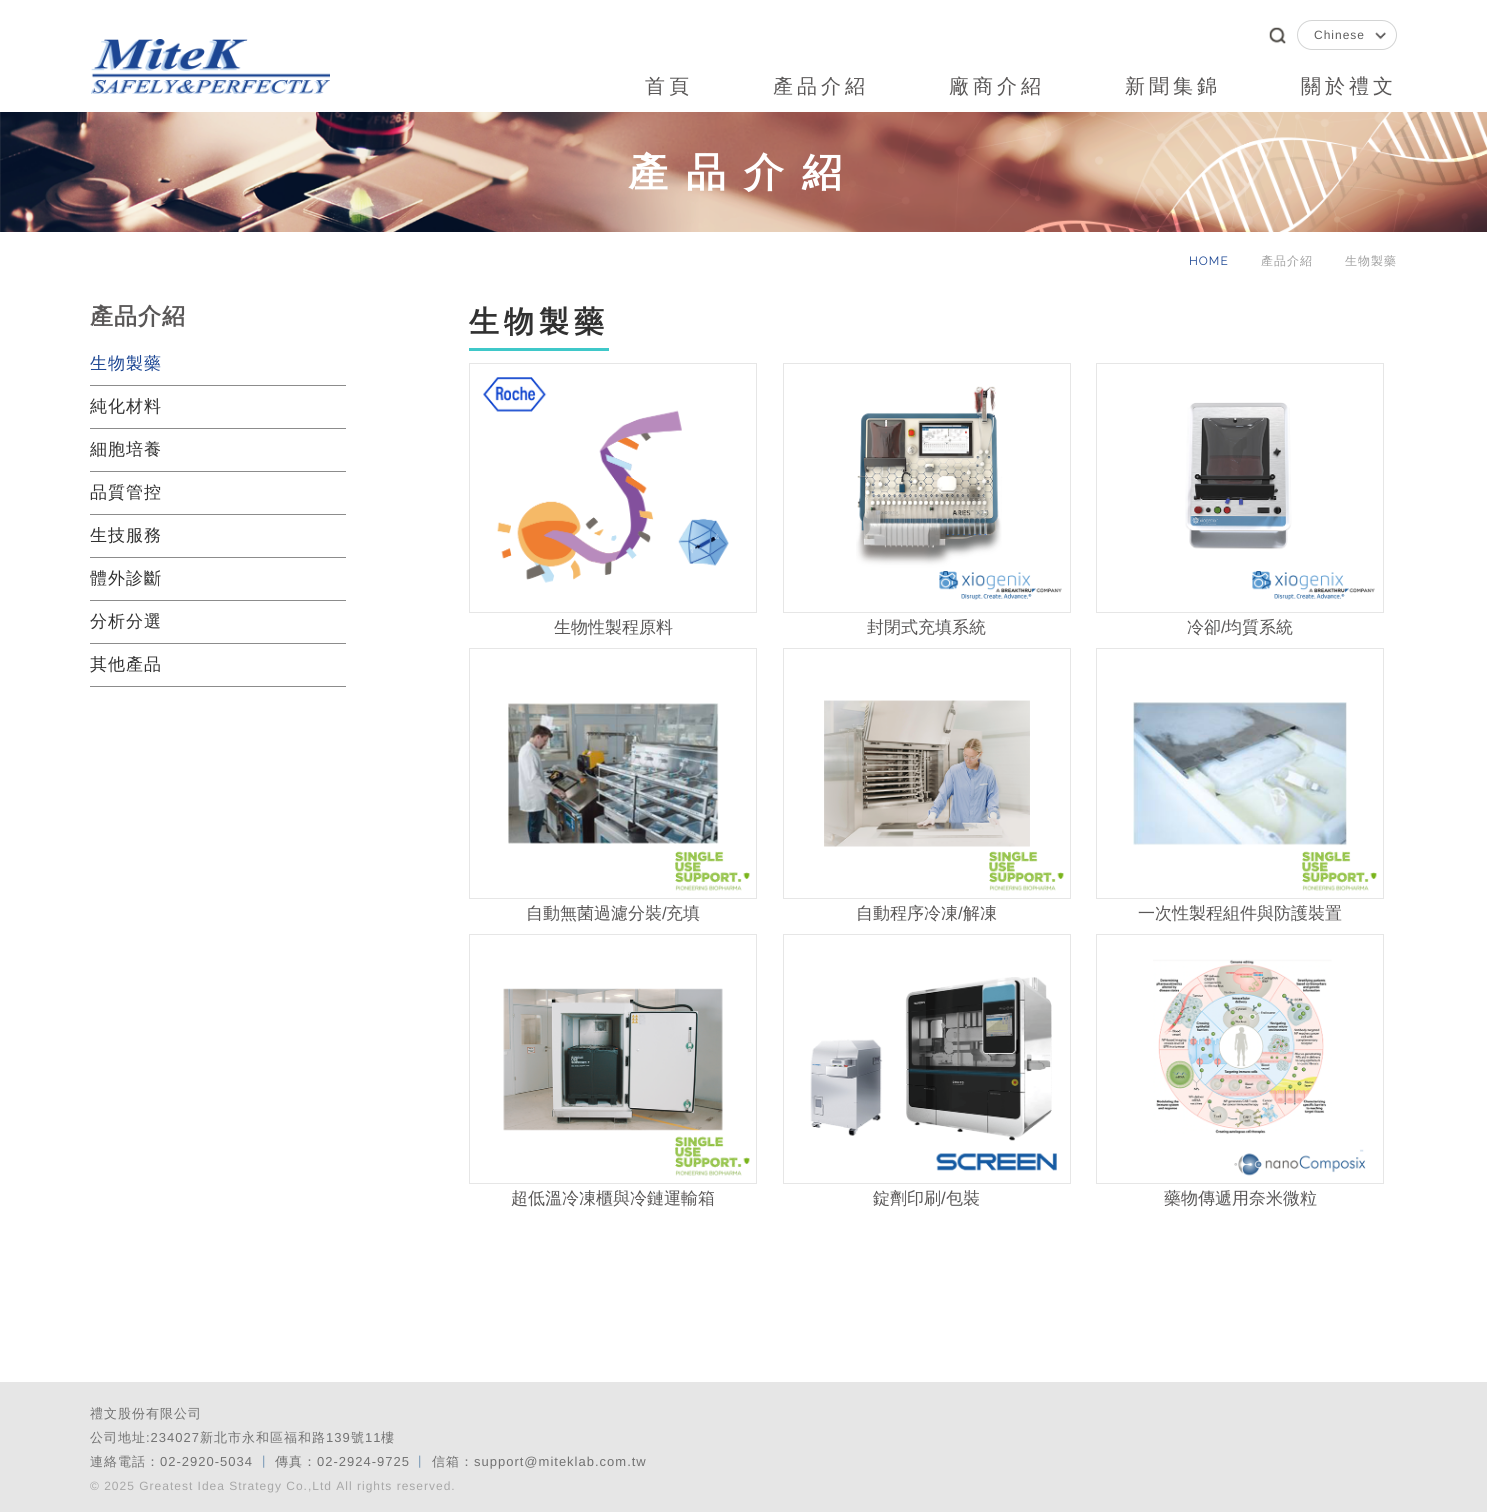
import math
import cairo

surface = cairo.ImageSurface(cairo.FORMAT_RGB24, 1487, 1512)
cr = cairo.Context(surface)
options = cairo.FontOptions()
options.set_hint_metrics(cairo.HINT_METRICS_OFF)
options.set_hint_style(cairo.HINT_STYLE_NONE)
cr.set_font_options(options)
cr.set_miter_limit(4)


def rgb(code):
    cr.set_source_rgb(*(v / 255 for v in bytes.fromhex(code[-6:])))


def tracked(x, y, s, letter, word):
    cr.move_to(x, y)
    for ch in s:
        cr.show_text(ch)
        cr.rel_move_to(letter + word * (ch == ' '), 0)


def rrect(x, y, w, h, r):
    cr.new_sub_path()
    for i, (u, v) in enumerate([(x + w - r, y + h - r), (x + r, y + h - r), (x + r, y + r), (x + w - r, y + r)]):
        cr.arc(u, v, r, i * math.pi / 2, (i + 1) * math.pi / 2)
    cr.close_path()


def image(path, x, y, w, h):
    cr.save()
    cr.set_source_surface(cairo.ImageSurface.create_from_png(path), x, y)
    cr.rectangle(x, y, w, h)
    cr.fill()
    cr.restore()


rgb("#ffffff")
cr.paint()
image("img/1.png", 91, 39, 239, 55)
image("img/2.png", 1269, 27, 17, 17)
image("img/3.png", 1375, 32, 11, 8)
rrect(1297.5, 20.5, 99, 29, 14.5)
rgb("#d3d4d4")
cr.set_line_width(1)
cr.stroke()
image("img/4.png", 0, 112, 1487, 120)
for x, y, w, h, color in [
    (90, 385, 256, 1, "#8c8c8c"),
    (90, 428, 256, 1, "#8c8c8c"),
    (90, 471, 256, 1, "#8c8c8c"),
    (90, 514, 256, 1, "#8c8c8c"),
    (90, 557, 256, 1, "#8c8c8c"),
    (90, 600, 256, 1, "#8c8c8c"),
    (90, 643, 256, 1, "#8c8c8c"),
    (90, 686, 256, 1, "#8c8c8c"),
    (469, 348, 140, 3, "#3fc8c9"),
]:
    rgb(color)
    cr.rectangle(x, y, w, h)
    cr.fill()
cr.rectangle(469.5, 363.5, 287, 249)
rgb("#e6e6e6")
cr.stroke()
image("img/5.png", 483, 377, 246, 206)
cr.rectangle(783.5, 363.5, 287, 249)
cr.stroke()
image("img/6.png", 856, 386, 206, 214)
cr.rectangle(1096.5, 363.5, 287, 249)
cr.stroke()
image("img/7.png", 1185, 402, 190, 198)
cr.rectangle(469.5, 648.5, 287, 250)
cr.stroke()
image("img/8.png", 508, 703, 242, 188)
cr.rectangle(783.5, 648.5, 287, 250)
cr.stroke()
image("img/9.png", 824, 700, 240, 191)
cr.rectangle(1096.5, 648.5, 287, 250)
cr.stroke()
image("img/10.png", 1133, 702, 244, 189)
cr.rectangle(469.5, 934.5, 287, 249)
cr.stroke()
image("img/11.png", 503, 988, 247, 188)
cr.rectangle(783.5, 934.5, 287, 249)
cr.stroke()
image("img/12.png", 810, 977, 247, 194)
cr.rectangle(1096.5, 934.5, 287, 249)
cr.stroke()
image("img/13.png", 1153, 959, 213, 217)
cr.rectangle(0, 1382, 1487, 130)
cr.fill()
cr.select_font_face("Liberation Sans")
cr.set_font_size(12)
rgb("#5e5e5e")
tracked(1314, 39, "Chinese", 1, 0)
cr.select_font_face("WenQuanYi Zen Hei Medium")
cr.set_font_size(20)
rgb("#595757")
for x, y, s in [
    (645, 93, "首頁"),
    (773, 93, "產品介紹"),
    (949, 93, "廠商介紹"),
    (1125, 93, "新聞集錦"),
    (1301, 93, "關於禮文"),
]:
    tracked(x, y, s, 4, 0)
cr.select_font_face("WenQuanYi Zen Hei", cairo.FONT_SLANT_NORMAL, cairo.FONT_WEIGHT_BOLD)
cr.set_font_size(40)
rgb("#ffffff")
tracked(628, 186, "產品介紹", 18, 0)
cr.select_font_face("Raleway Thin")
cr.set_font_size(12)
rgb("#1c4693")
tracked(1189, 265, "HOME", 1, 0)
cr.select_font_face("WenQuanYi Zen Hei Medium")
rgb("#a0a0a0")
tracked(1261, 265, "產品介紹", 1, 0)
tracked(1345, 265, "生物製藥", 1, 0)
cr.select_font_face("WenQuanYi Zen Hei", cairo.FONT_SLANT_NORMAL, cairo.FONT_WEIGHT_BOLD)
cr.set_font_size(23)
rgb("#595757")
tracked(90, 324, "產品介紹", 1, 0)
cr.select_font_face("WenQuanYi Zen Hei Medium")
cr.set_font_size(17)
rgb("#1c4693")
tracked(90, 369, "生物製藥", 1, 0)
rgb("#313131")
for x, y, s in [
    (90, 412, "純化材料"),
    (90, 455, "細胞培養"),
    (90, 498, "品質管控"),
    (90, 541, "生技服務"),
    (90, 584, "體外診斷"),
    (90, 627, "分析分選"),
    (90, 670, "其他產品"),
]:
    tracked(x, y, s, 1, 0)
cr.select_font_face("WenQuanYi Zen Hei", cairo.FONT_SLANT_NORMAL, cairo.FONT_WEIGHT_BOLD)
cr.set_font_size(30)
tracked(469, 332, "生物製藥", 5, 0)
cr.select_font_face("WenQuanYi Zen Hei Medium")
cr.set_font_size(17)
rgb("#595757")
for x, y, s in [
    (554, 633, "生物性製程原料"),
    (867, 633, "封閉式充填系統"),
    (1187, 633, "冷卻"),
]:
    cr.move_to(x, y)
    cr.show_text(s)
cr.select_font_face("Liberation Sans")
cr.move_to(1221, 633)
cr.show_text("/")
cr.select_font_face("WenQuanYi Zen Hei Medium")
cr.move_to(1225, 633)
cr.show_text("均質系統")
cr.move_to(526, 919)
cr.show_text("自動無菌過濾分裝")
cr.select_font_face("Liberation Sans")
cr.move_to(662, 919)
cr.show_text("/")
cr.select_font_face("WenQuanYi Zen Hei Medium")
cr.move_to(666, 919)
cr.show_text("充填")
cr.move_to(856, 919)
cr.show_text("自動程序冷凍")
cr.select_font_face("Liberation Sans")
cr.move_to(958, 919)
cr.show_text("/")
cr.select_font_face("WenQuanYi Zen Hei Medium")
for x, y, s in [
    (963, 919, "解凍"),
    (1138, 919, "一次性製程組件與防護裝置"),
    (511, 1204, "超低溫冷凍櫃與冷鏈運輸箱"),
    (873, 1204, "錠劑印刷"),
]:
    cr.move_to(x, y)
    cr.show_text(s)
cr.select_font_face("Liberation Sans")
cr.move_to(941, 1204)
cr.show_text("/")
cr.select_font_face("WenQuanYi Zen Hei Medium")
cr.move_to(946, 1204)
cr.show_text("包裝")
cr.move_to(1164, 1204)
cr.show_text("藥物傳遞用奈米微粒")
cr.set_font_size(13)
rgb("#717171")
tracked(90, 1418, "禮文股份有限公司", 1, 0)
tracked(90, 1442, "公司地址", 1, 0)
cr.select_font_face("Liberation Sans")
tracked(146, 1442, ":234027", 1, 0)
cr.select_font_face("WenQuanYi Zen Hei Medium")
tracked(200, 1442, "新北市永和區福和路", 1, 0)
cr.select_font_face("Liberation Sans")
tracked(326, 1442, "139", 1, 0)
cr.select_font_face("WenQuanYi Zen Hei Medium")
tracked(351, 1442, "號", 1, 0)
cr.select_font_face("Liberation Sans")
tracked(365, 1442, "11", 1, 0)
cr.select_font_face("WenQuanYi Zen Hei Medium")
tracked(381, 1442, "樓", 1, 0)
tracked(90, 1466, "連絡電話：", 1, 0)
cr.select_font_face("Liberation Sans")
tracked(160, 1466, "02-2920-5034", 1, 0)
rgb("#7a9ab7")
tracked(262, 1465, "|", 1, 0)
cr.select_font_face("WenQuanYi Zen Hei Medium")
rgb("#717171")
tracked(275, 1466, "傳真：", 1, 0)
cr.select_font_face("Liberation Sans")
tracked(317, 1466, "02-2924-9725", 1, 0)
rgb("#7a9ab7")
tracked(418, 1465, "|", 1, 0)
cr.select_font_face("WenQuanYi Zen Hei Medium")
rgb("#717171")
tracked(432, 1466, "信箱：", 1, 0)
cr.select_font_face("Liberation Sans")
tracked(474, 1466, "support@miteklab.com.tw", 1, 0)
cr.set_font_size(12)
rgb("#a7a7a7")
tracked(90, 1490, "© 2025 Greatest Idea Strategy Co.,Ltd All rights reserved.", 1, 0)
surface.write_to_png("page.png")
